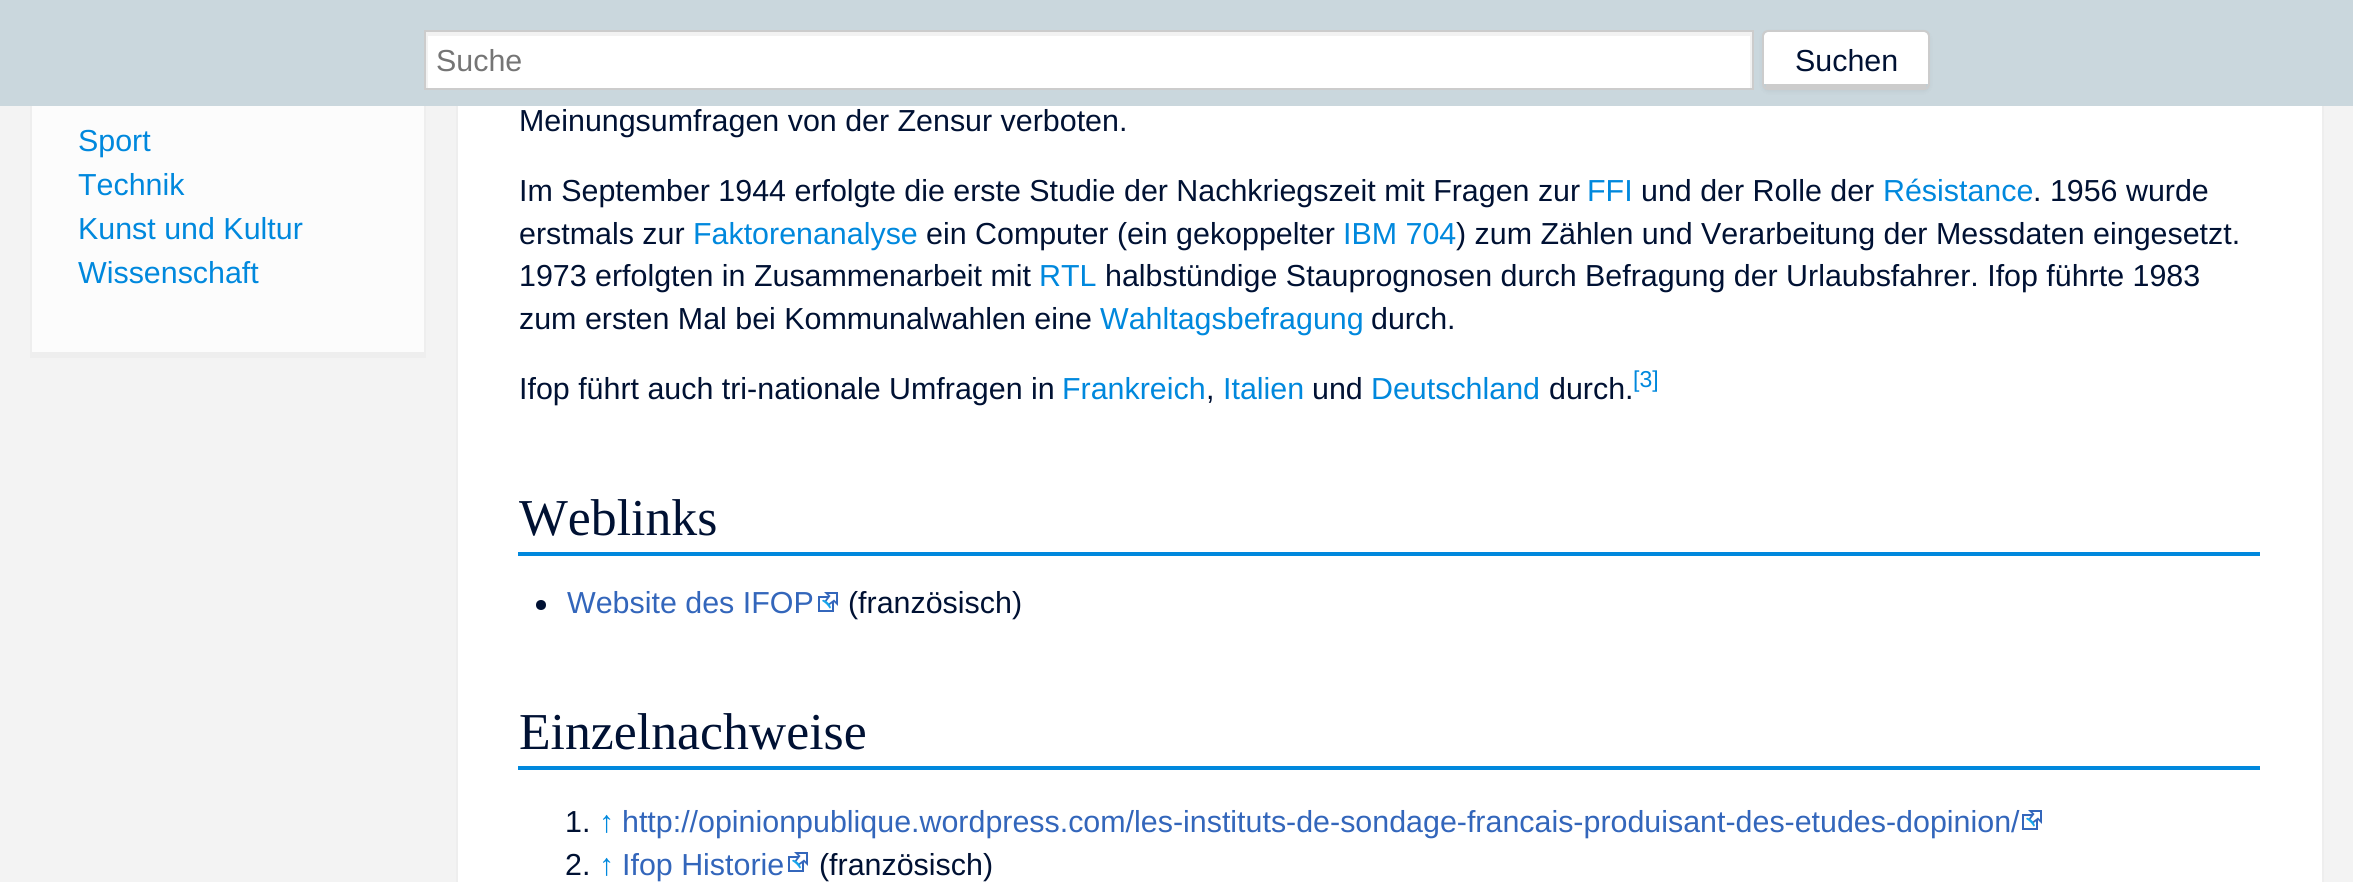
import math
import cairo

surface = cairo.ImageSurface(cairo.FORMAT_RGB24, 2353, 882)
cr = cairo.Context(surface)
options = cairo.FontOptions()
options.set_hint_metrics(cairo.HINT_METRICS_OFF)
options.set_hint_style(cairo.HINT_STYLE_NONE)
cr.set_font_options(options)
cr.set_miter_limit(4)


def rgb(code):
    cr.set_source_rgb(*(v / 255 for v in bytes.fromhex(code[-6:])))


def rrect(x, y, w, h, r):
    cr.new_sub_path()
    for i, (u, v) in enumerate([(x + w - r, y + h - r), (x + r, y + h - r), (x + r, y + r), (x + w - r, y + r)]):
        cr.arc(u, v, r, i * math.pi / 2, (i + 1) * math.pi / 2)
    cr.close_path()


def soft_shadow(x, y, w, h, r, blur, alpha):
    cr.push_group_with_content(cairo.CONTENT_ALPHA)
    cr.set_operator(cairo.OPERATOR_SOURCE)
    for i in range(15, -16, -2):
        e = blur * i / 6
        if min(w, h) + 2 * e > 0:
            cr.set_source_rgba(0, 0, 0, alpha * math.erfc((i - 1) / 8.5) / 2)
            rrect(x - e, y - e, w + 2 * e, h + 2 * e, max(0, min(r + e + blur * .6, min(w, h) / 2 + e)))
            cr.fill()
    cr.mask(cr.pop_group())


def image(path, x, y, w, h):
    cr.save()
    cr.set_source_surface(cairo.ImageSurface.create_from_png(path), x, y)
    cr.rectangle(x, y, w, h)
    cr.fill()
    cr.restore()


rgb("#f3f3f3")
cr.paint()
rgb("#cad7dd")
cr.rectangle(0, 0, 2353, 106)
cr.fill()
rgb("#ffffff")
cr.rectangle(428, 36, 1322, 52)
cr.fill()
cr.save()
cr.rectangle(426, 32, 1326, 56)
cr.clip()
rgb("#f2f2f2")
cr.set_fill_rule(cairo.FILL_RULE_EVEN_ODD)
cr.new_path()
cr.move_to(228, -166)
cr.line_to(1950, -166)
cr.line_to(1950, 286)
cr.line_to(228, 286)
cr.close_path()
cr.move_to(428, 36)
cr.line_to(1750, 36)
cr.line_to(1750, 88)
cr.line_to(428, 88)
cr.close_path()
cr.fill()
cr.restore()
cr.rectangle(425, 31, 1328, 58)
rgb("#cccccc")
cr.stroke()
rgb("#000000")
soft_shadow(1762, 32, 168, 60, 6, 2, 0.05)
rgb("#ffffff")
cr.new_path()
cr.move_to(1768, 32)
cr.line_to(1924, 32)
cr.curve_to(1926, 32, 1928, 34, 1928, 36)
cr.line_to(1928, 84)
cr.line_to(1924, 84)
cr.line_to(1764, 84)
cr.line_to(1764, 36)
cr.curve_to(1764, 34, 1766, 32, 1768, 32)
cr.close_path()
cr.fill()
rrect(1763, 31, 166, 58, 5)
rgb("#cccccc")
cr.stroke()
for x, y, w, h, color in [
    (1766, 84, 160, 4, "#cccccc"),
    (32, 106, 392, 246, "#fcfcfc"),
    (424, 106, 2, 252, "#eeeeee"),
    (30, 352, 396, 6, "#eeeeee"),
    (30, 106, 2, 252, "#eeeeee"),
    (458, 106, 1864, 776, "#ffffff"),
    (2322, 106, 2, 776, "#eeeeee"),
    (456, 106, 2, 776, "#eeeeee"),
    (518, 552, 1742, 4, "#0088dd"),
]:
    rgb(color)
    cr.rectangle(x, y, w, h)
    cr.fill()
rgb("#001133")
cr.arc(541, 605, 5, 0, 2 * math.pi)
cr.fill()
image("img/1.png", 818, 592, 20, 20)
rgb("#0088dd")
cr.rectangle(518, 766, 1742, 4)
cr.fill()
image("img/1.png", 2022, 810, 20, 20)
image("img/1.png", 788, 852, 20, 20)
cr.select_font_face("Liberation Sans")
cr.set_font_size(30.4)
rgb("#757575")
cr.move_to(436, 71)
cr.show_text("Suche")
rgb("#001133")
cr.move_to(1795, 71)
cr.show_text("Suchen")
rgb("#0088dd")
for x, y, s in [
    (78, 151, "Sport"),
    (78, 195, "Technik"),
    (78, 239, "Kunst und Kultur"),
    (78, 283, "Wissenschaft"),
]:
    cr.move_to(x, y)
    cr.show_text(s)
rgb("#001133")
cr.move_to(519, 131)
cr.show_text("Meinungsumfragen von der Zensur verboten.")
cr.move_to(519, 201)
cr.show_text("Im September 1944 erfolgte die erste Studie der Nachkriegszeit mit Fragen zur")
rgb("#0088dd")
cr.move_to(1587, 201)
cr.show_text("FFI")
rgb("#001133")
cr.move_to(1641, 201)
cr.show_text("und der Rolle der")
rgb("#0088dd")
cr.move_to(1883, 201)
cr.show_text("Résistance")
rgb("#001133")
cr.move_to(2033, 201)
cr.show_text(". 1956 wurde")
cr.move_to(519, 244)
cr.show_text("erstmals zur")
rgb("#0088dd")
cr.move_to(693, 244)
cr.show_text("Faktorenanalyse")
rgb("#001133")
cr.move_to(926, 244)
cr.show_text("ein Computer (ein gekoppelter")
rgb("#0088dd")
cr.move_to(1343, 244)
cr.show_text("IBM 704")
rgb("#001133")
cr.move_to(1456, 244)
cr.show_text(") zum Zählen und Verarbeitung der Messdaten eingesetzt.")
cr.move_to(519, 286)
cr.show_text("1973 erfolgten in Zusammenarbeit mit")
rgb("#0088dd")
cr.move_to(1039, 286)
cr.show_text("RTL")
rgb("#001133")
cr.move_to(1105, 286)
cr.show_text("halbstündige Stauprognosen durch Befragung der Urlaubsfahrer. Ifop führte 1983")
cr.move_to(519, 329)
cr.show_text("zum ersten Mal bei Kommunalwahlen eine")
rgb("#0088dd")
cr.move_to(1100, 329)
cr.show_text("Wahltagsbefragung")
rgb("#001133")
cr.move_to(1371, 329)
cr.show_text("durch.")
cr.move_to(519, 399)
cr.show_text("Ifop führt auch tri-nationale Umfragen in")
rgb("#0088dd")
cr.move_to(1062, 399)
cr.show_text("Frankreich")
rgb("#001133")
cr.move_to(1206, 399)
cr.show_text(",")
rgb("#0088dd")
cr.move_to(1223, 399)
cr.show_text("Italien")
rgb("#001133")
cr.move_to(1312, 399)
cr.show_text("und")
rgb("#0088dd")
cr.move_to(1371, 399)
cr.show_text("Deutschland")
rgb("#001133")
cr.move_to(1549, 399)
cr.show_text("durch.")
cr.set_font_size(23)
rgb("#0088dd")
cr.move_to(1633, 387)
cr.show_text("[3]")
cr.select_font_face("Liberation Serif")
cr.set_font_size(51.75)
rgb("#001133")
cr.move_to(519, 535)
cr.show_text("Weblinks")
cr.select_font_face("Liberation Sans")
cr.set_font_size(30.4)
rgb("#3366bb")
cr.move_to(567, 613)
cr.show_text("Website des IFOP")
rgb("#001133")
cr.move_to(848, 613)
cr.show_text("(französisch)")
cr.select_font_face("Liberation Serif")
cr.set_font_size(51.75)
cr.move_to(519, 749)
cr.show_text("Einzelnachweise")
cr.select_font_face("Liberation Sans")
cr.set_font_size(30.4)
cr.move_to(565, 832)
cr.show_text("1.")
rgb("#0088dd")
cr.move_to(599, 832)
cr.show_text("↑")
rgb("#3366bb")
cr.move_to(622, 832)
cr.show_text("http://opinionpublique.wordpress.com/les-instituts-de-sondage-francais-produisant-des-etudes-dopinion/")
rgb("#001133")
cr.move_to(565, 875)
cr.show_text("2.")
rgb("#0088dd")
cr.move_to(599, 875)
cr.show_text("↑")
rgb("#3366bb")
cr.move_to(622, 875)
cr.show_text("Ifop Historie")
rgb("#001133")
cr.move_to(819, 875)
cr.show_text("(französisch)")
surface.write_to_png("page.png")
